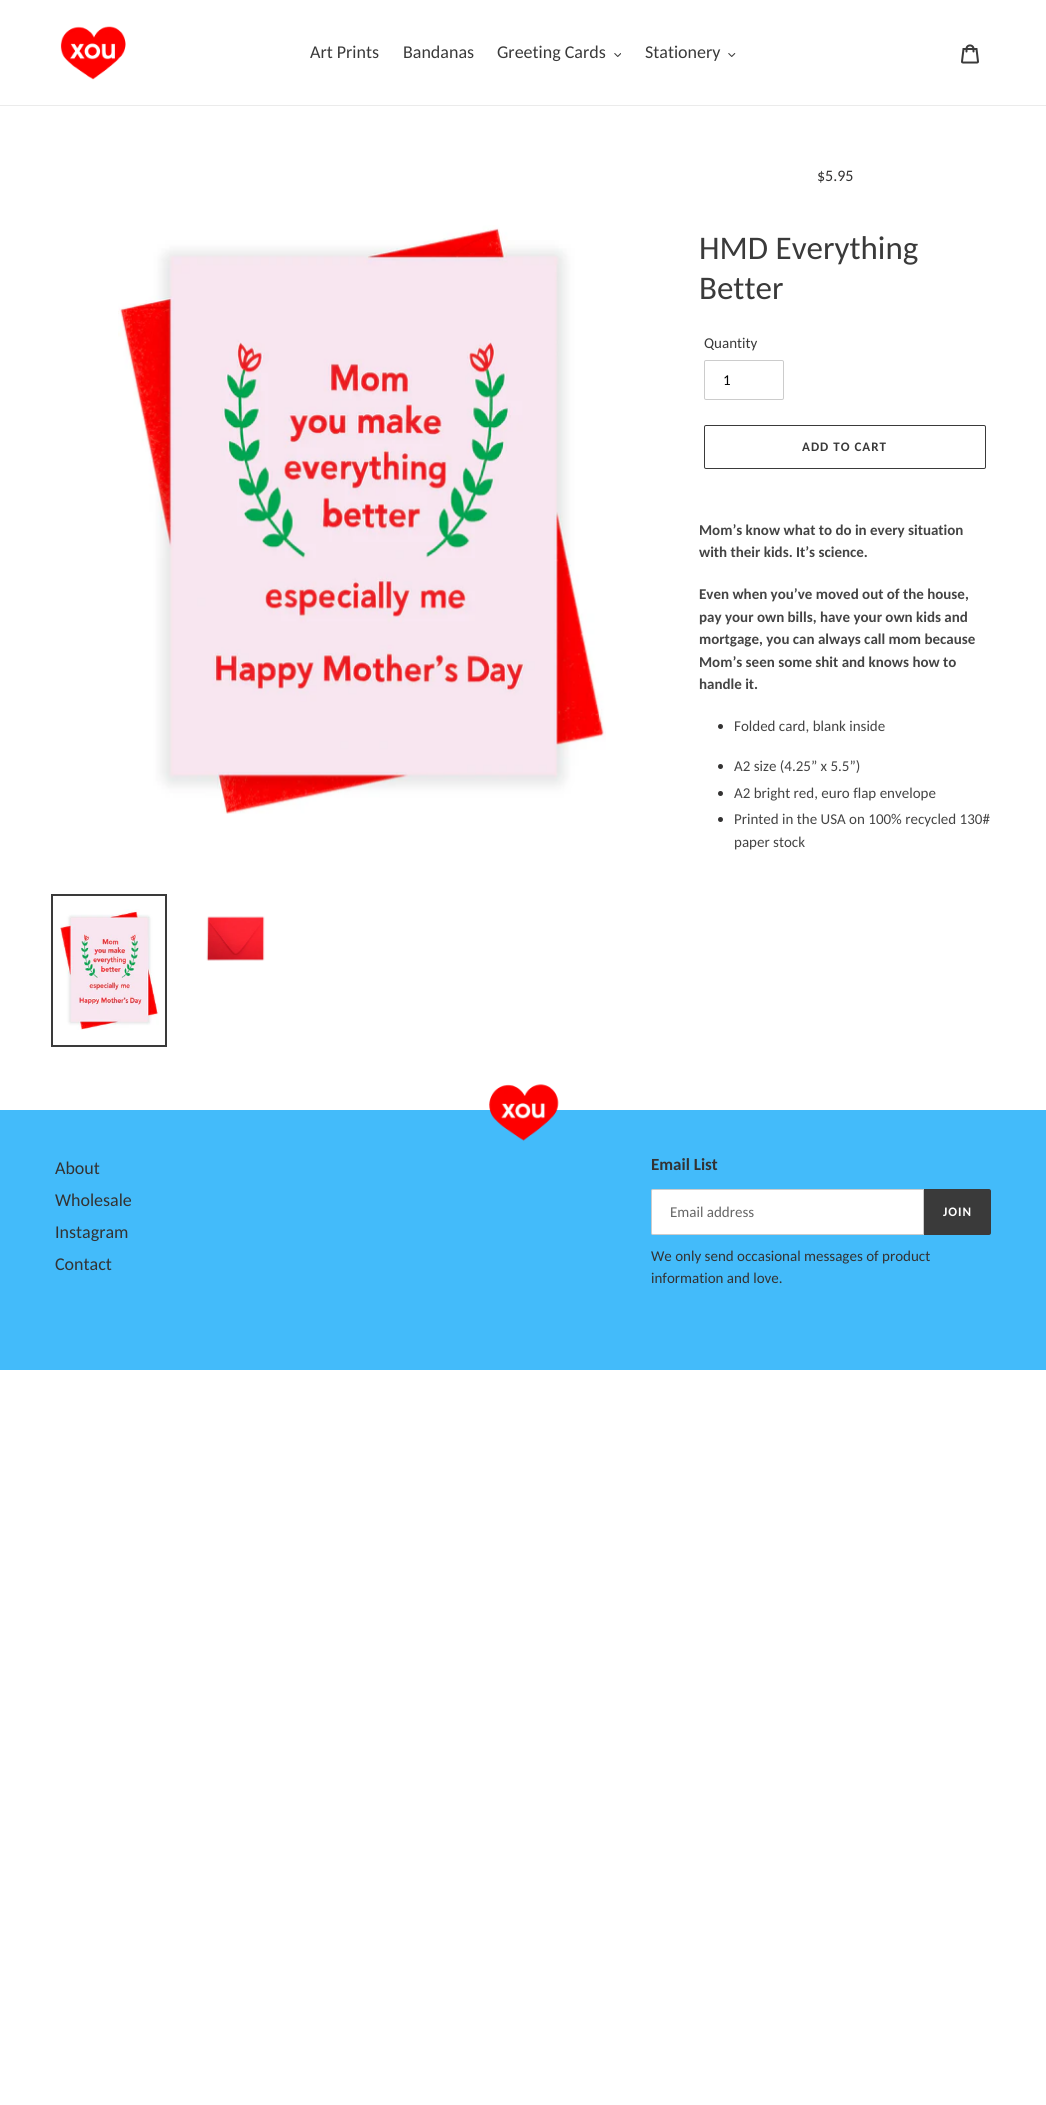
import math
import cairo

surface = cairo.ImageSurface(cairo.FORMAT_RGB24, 1046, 2105)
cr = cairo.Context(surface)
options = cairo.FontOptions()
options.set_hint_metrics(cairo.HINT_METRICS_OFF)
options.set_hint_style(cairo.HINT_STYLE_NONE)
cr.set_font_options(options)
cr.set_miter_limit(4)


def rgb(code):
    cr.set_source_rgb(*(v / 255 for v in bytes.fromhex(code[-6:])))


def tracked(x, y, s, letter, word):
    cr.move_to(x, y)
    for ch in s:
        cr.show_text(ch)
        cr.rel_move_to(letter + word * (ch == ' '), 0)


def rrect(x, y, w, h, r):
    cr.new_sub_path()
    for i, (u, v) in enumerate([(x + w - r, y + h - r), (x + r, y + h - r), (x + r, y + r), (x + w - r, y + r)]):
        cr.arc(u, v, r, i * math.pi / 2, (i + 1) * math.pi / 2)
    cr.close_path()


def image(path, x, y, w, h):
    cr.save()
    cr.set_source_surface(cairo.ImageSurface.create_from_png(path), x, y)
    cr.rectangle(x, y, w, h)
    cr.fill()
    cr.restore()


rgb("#ffffff")
cr.paint()
rgb("#ebebeb")
cr.rectangle(0, 105, 1046, 1)
cr.fill()
image("img/1.png", 60, 26, 66, 54)
image("img/2.png", 614, 53, 7, 4)
image("img/3.png", 728, 53, 8, 4)
image("img/4.png", 961, 44, 18, 20)
image("img/5.png", 118, 225, 488, 589)
cr.rectangle(52, 895, 114, 151)
rgb("#3a3a3a")
cr.stroke()
image("img/6.png", 60, 909, 99, 121)
image("img/7.png", 206, 916, 59, 45)
rrect(704.5, 360.5, 79, 39, 1.5)
rgb("#cccccc")
cr.set_line_width(1)
cr.stroke()
rrect(704.5, 425.5, 281, 43, 1.5)
rgb("#3a3a3a")
cr.stroke()
rgb("#333232")
cr.arc(720.5, 726.5, 2.5, 0, 2 * math.pi)
cr.fill()
cr.arc(720.5, 766.5, 2.5, 0, 2 * math.pi)
cr.fill()
cr.arc(720.5, 793.5, 2.5, 0, 2 * math.pi)
cr.fill()
cr.arc(720.5, 819.5, 2.5, 0, 2 * math.pi)
cr.fill()
rgb("#43bbfa")
cr.rectangle(0, 1110, 1046, 260)
cr.fill()
image("img/8.png", 489, 1084, 70, 57)
rgb("#ffffff")
cr.new_path()
cr.move_to(653, 1189.5)
cr.line_to(923.5, 1189.5)
cr.line_to(923.5, 1234.5)
cr.line_to(653, 1234.5)
cr.curve_to(652, 1234.5, 651.5, 1234, 651.5, 1233)
cr.line_to(651.5, 1191)
cr.curve_to(651.5, 1190, 652, 1189.5, 653, 1189.5)
cr.close_path()
cr.fill_preserve()
rgb("#cccccc")
cr.stroke()
rgb("#3a3a3a")
cr.new_path()
cr.move_to(924, 1189)
cr.line_to(989, 1189)
cr.curve_to(990, 1189, 991, 1190, 991, 1191)
cr.line_to(991, 1233)
cr.curve_to(991, 1234, 990, 1235, 989, 1235)
cr.line_to(924, 1235)
cr.close_path()
cr.fill()
cr.select_font_face("Carlito")
cr.set_font_size(18)
for x, y, s in [
    (310, 58, "Art Prints"),
    (403, 58, "Bandanas"),
    (497, 58, "Greeting Cards"),
    (645, 58, "Stationery"),
]:
    cr.move_to(x, y)
    cr.show_text(s)
cr.set_font_size(16)
rgb("#333232")
cr.move_to(817, 181)
cr.show_text("$5.95")
cr.set_font_size(33)
rgb("#3a3a3a")
cr.move_to(699, 259)
cr.show_text("HMD Everything")
cr.move_to(699, 299)
cr.show_text("Better")
cr.set_font_size(15)
cr.move_to(704, 348)
cr.show_text("Quantity")
rgb("#000000")
cr.move_to(723, 385)
cr.show_text("1")
cr.select_font_face("Carlito", cairo.FONT_SLANT_NORMAL, cairo.FONT_WEIGHT_BOLD)
cr.set_font_size(13)
rgb("#3a3a3a")
tracked(802, 451, "ADD TO CART", 1, 0)
cr.set_font_size(15)
rgb("#444444")
for x, y, s in [
    (699, 535, "Mom’s know what to do in every situation"),
    (699, 557, "with their kids. It’s science."),
    (699, 599, "Even when you’ve moved out of the house,"),
    (699, 622, "pay your own bills, have your own kids and"),
    (699, 644, "mortgage, you can always call mom because"),
    (699, 667, "Mom’s seen some shit and knows how to"),
    (699, 689, "handle it."),
]:
    cr.move_to(x, y)
    cr.show_text(s)
cr.select_font_face("Carlito")
for x, y, s in [
    (734, 731, "Folded card, blank inside"),
    (734, 771, "A2 size (4.25” x 5.5”)"),
    (734, 798, "A2 bright red, euro flap envelope"),
    (734, 824, "Printed in the USA on 100% recycled 130#"),
    (734, 847, "paper stock"),
]:
    cr.move_to(x, y)
    cr.show_text(s)
cr.set_font_size(18)
rgb("#333232")
for x, y, s in [
    (55, 1174, "About"),
    (55, 1206, "Wholesale"),
    (55, 1238, "Instagram"),
    (55, 1270, "Contact"),
]:
    cr.move_to(x, y)
    cr.show_text(s)
cr.select_font_face("Carlito", cairo.FONT_SLANT_NORMAL, cairo.FONT_WEIGHT_BOLD)
cr.set_font_size(17)
cr.move_to(651, 1170)
cr.show_text("Email List")
cr.select_font_face("Carlito")
cr.set_font_size(15)
rgb("#666666")
cr.move_to(670, 1217)
cr.show_text("Email address")
cr.select_font_face("Carlito", cairo.FONT_SLANT_NORMAL, cairo.FONT_WEIGHT_BOLD)
cr.set_font_size(13)
rgb("#ffffff")
tracked(943, 1216, "JOIN", 1, 0)
cr.select_font_face("Carlito")
cr.set_font_size(15)
rgb("#333232")
cr.move_to(651, 1261)
cr.show_text("We only send occasional messages of product")
cr.move_to(651, 1283)
cr.show_text("information and love.")
surface.write_to_png("page.png")
